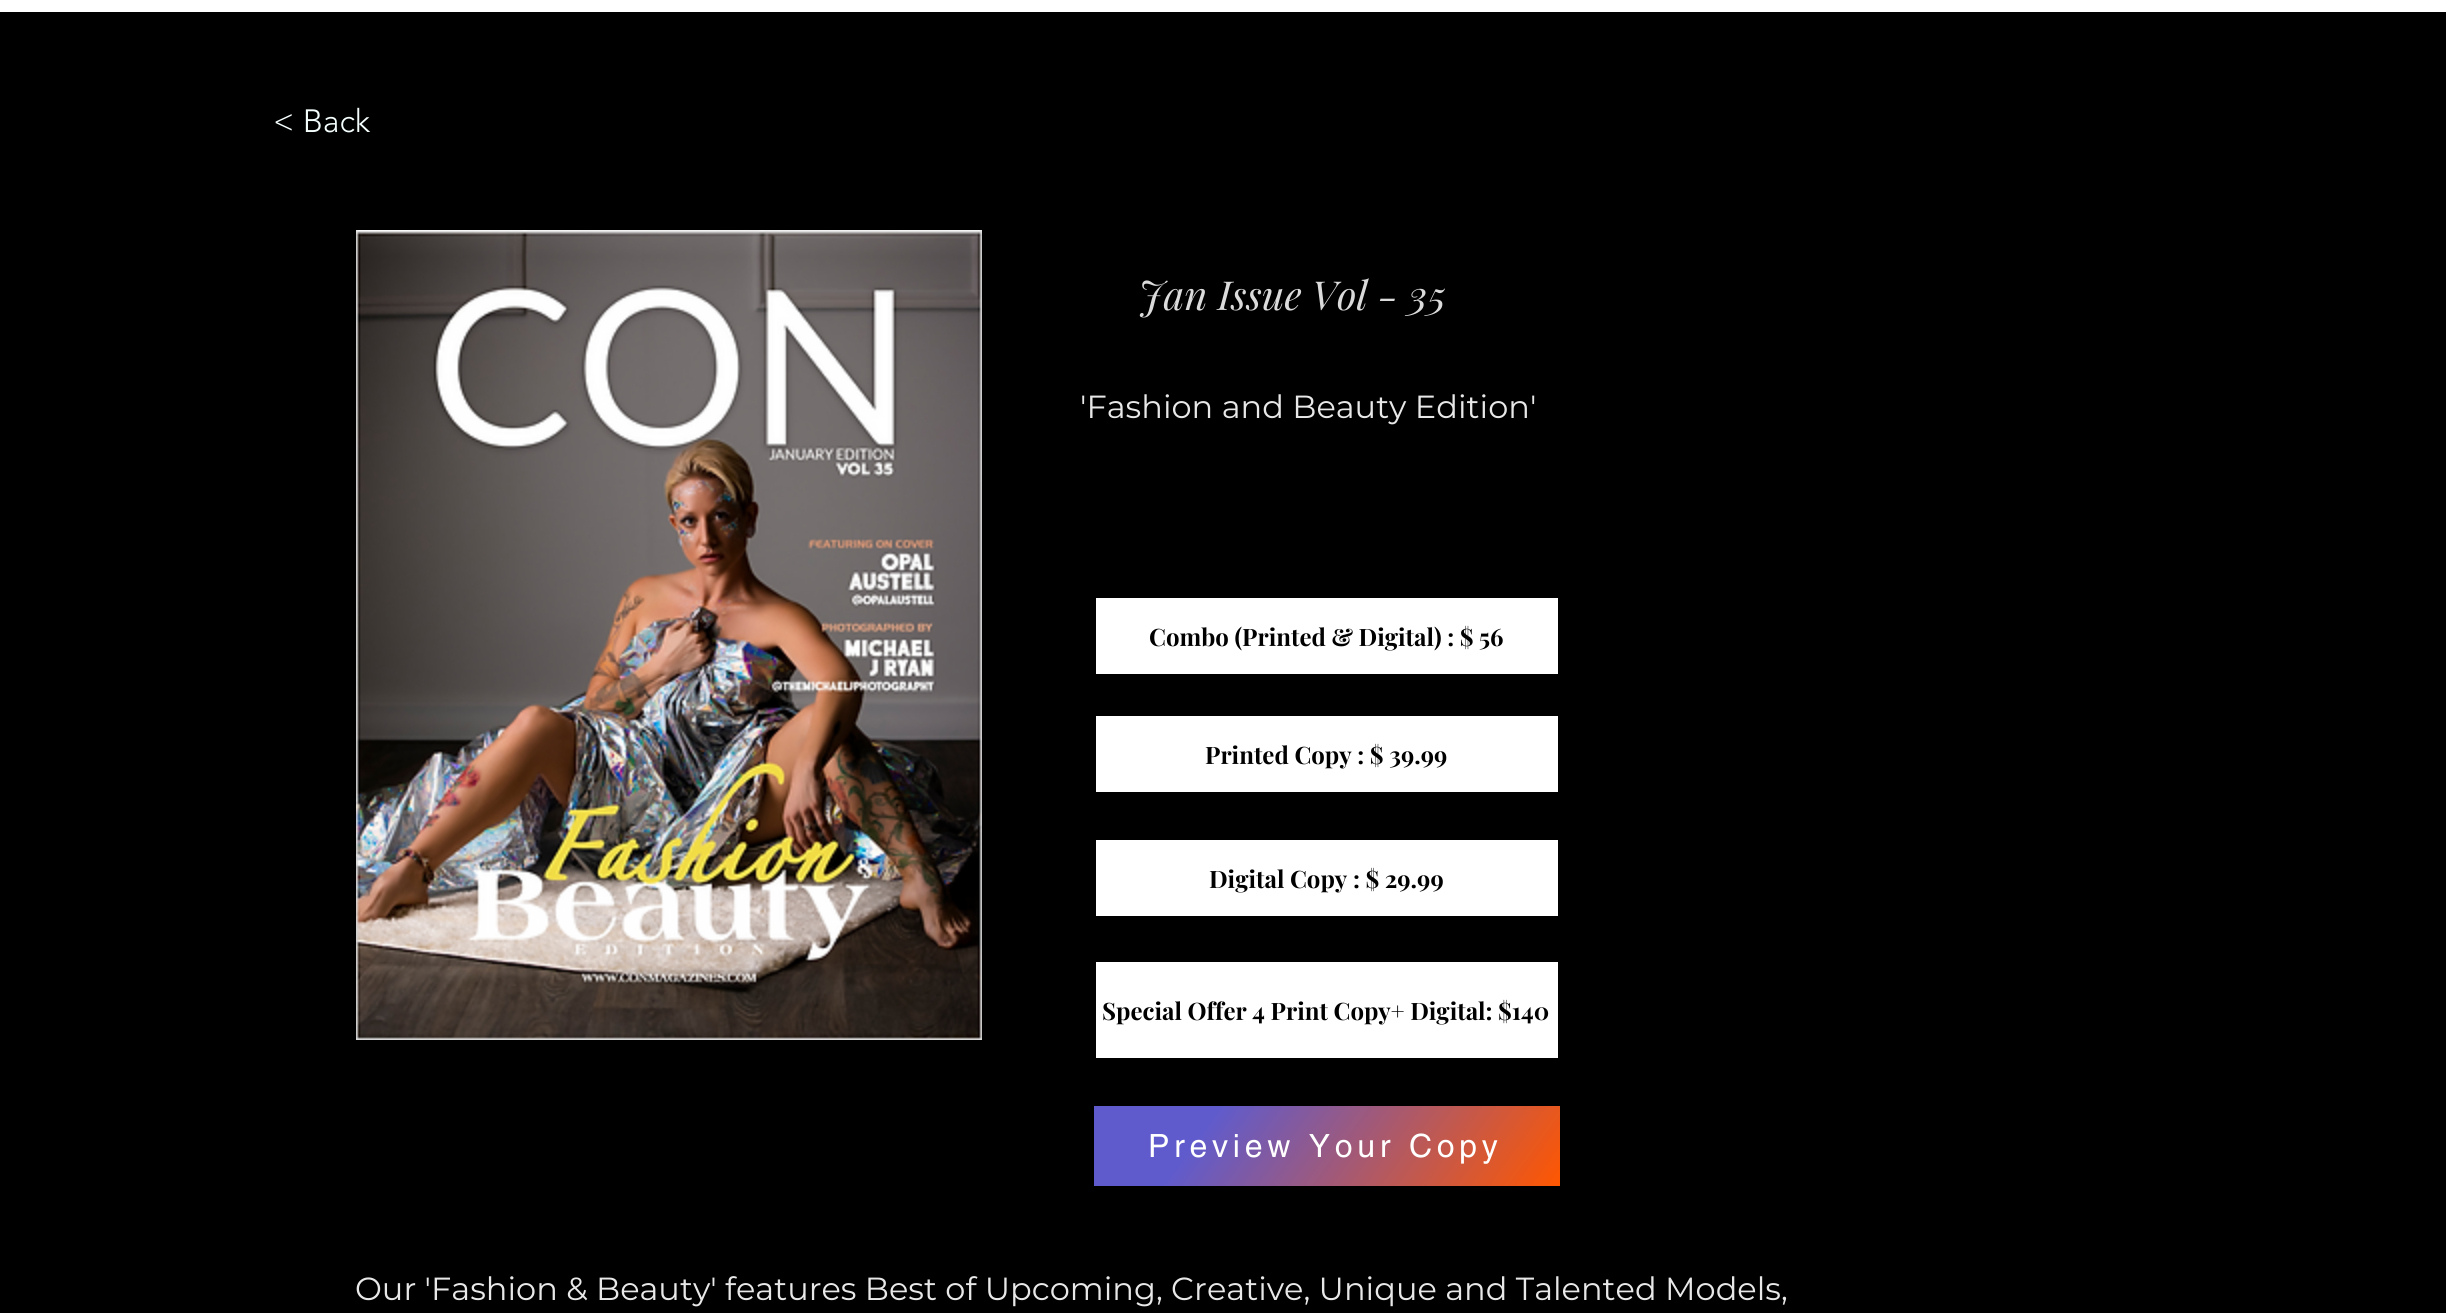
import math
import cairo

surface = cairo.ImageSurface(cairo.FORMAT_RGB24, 2446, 1313)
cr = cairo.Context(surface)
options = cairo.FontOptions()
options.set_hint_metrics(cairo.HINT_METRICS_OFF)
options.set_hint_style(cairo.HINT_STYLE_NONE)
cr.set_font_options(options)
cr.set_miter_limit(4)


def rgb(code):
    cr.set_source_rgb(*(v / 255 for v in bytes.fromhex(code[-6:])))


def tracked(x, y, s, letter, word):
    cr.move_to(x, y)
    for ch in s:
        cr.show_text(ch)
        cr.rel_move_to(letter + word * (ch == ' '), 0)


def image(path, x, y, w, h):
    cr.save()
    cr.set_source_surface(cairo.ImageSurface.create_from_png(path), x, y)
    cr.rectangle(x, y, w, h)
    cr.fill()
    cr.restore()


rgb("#ffffff")
cr.paint()
rgb("#000000")
cr.rectangle(0, 12, 2446, 1301)
cr.fill()
image("img/1.png", 356, 230, 626, 810)
for x, y, w, h, color in [
    (1096, 598, 462, 76, "#ffffff"),
    (1096, 716, 462, 76, "#ffffff"),
    (1096, 840, 462, 76, "#ffffff"),
    (1096, 962, 462, 96, "#ffffff"),
]:
    rgb(color)
    cr.rectangle(x, y, w, h)
    cr.fill()
gradient = cairo.LinearGradient(1155, 1021, 1499, 1271)
gradient.add_color_stop_rgba(0.24, 0.373, 0.357, 0.804, 1)
gradient.add_color_stop_rgba(1, 1, 0.341, 0, 1)
cr.set_source(gradient)
cr.rectangle(1094, 1106, 466, 80)
cr.fill()
cr.select_font_face("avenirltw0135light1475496 Light")
cr.set_font_size(32)
rgb("#f5fffe")
cr.move_to(273, 132)
cr.show_text("< Back")
cr.select_font_face("Playfair Display", cairo.FONT_SLANT_ITALIC)
cr.set_font_size(40)
rgb("#dbdbdb")
cr.move_to(1138, 310)
cr.show_text("Jan Issue Vol - 35")
cr.select_font_face("Montserrat")
cr.set_font_size(32)
rgb("#e8e8e8")
cr.move_to(1080, 418)
cr.show_text("'Fashion and Beauty Edition'")
cr.select_font_face("Playfair Display", cairo.FONT_SLANT_NORMAL, cairo.FONT_WEIGHT_BOLD)
cr.set_font_size(24)
rgb("#000000")
for x, y, s in [
    (1149, 646, "Combo (Printed & Digital) : $ 56"),
    (1205, 764, "Printed Copy : $ 39.99"),
    (1209, 888, "Digital Copy : $ 29.99"),
    (1102, 1020, "Special Offer 4 Print Copy+ Digital: $140"),
]:
    cr.move_to(x, y)
    cr.show_text(s)
cr.select_font_face("helvetica")
cr.set_font_size(32)
rgb("#ffffff")
tracked(1148, 1157, "Preview Your Copy", 4.75, 0)
cr.select_font_face("Montserrat")
rgb("#e8e8e8")
cr.move_to(355, 1300)
cr.show_text("Our 'Fashion & Beauty' features Best of Upcoming, Creative, Unique and Talented Models,")
surface.write_to_png("page.png")
